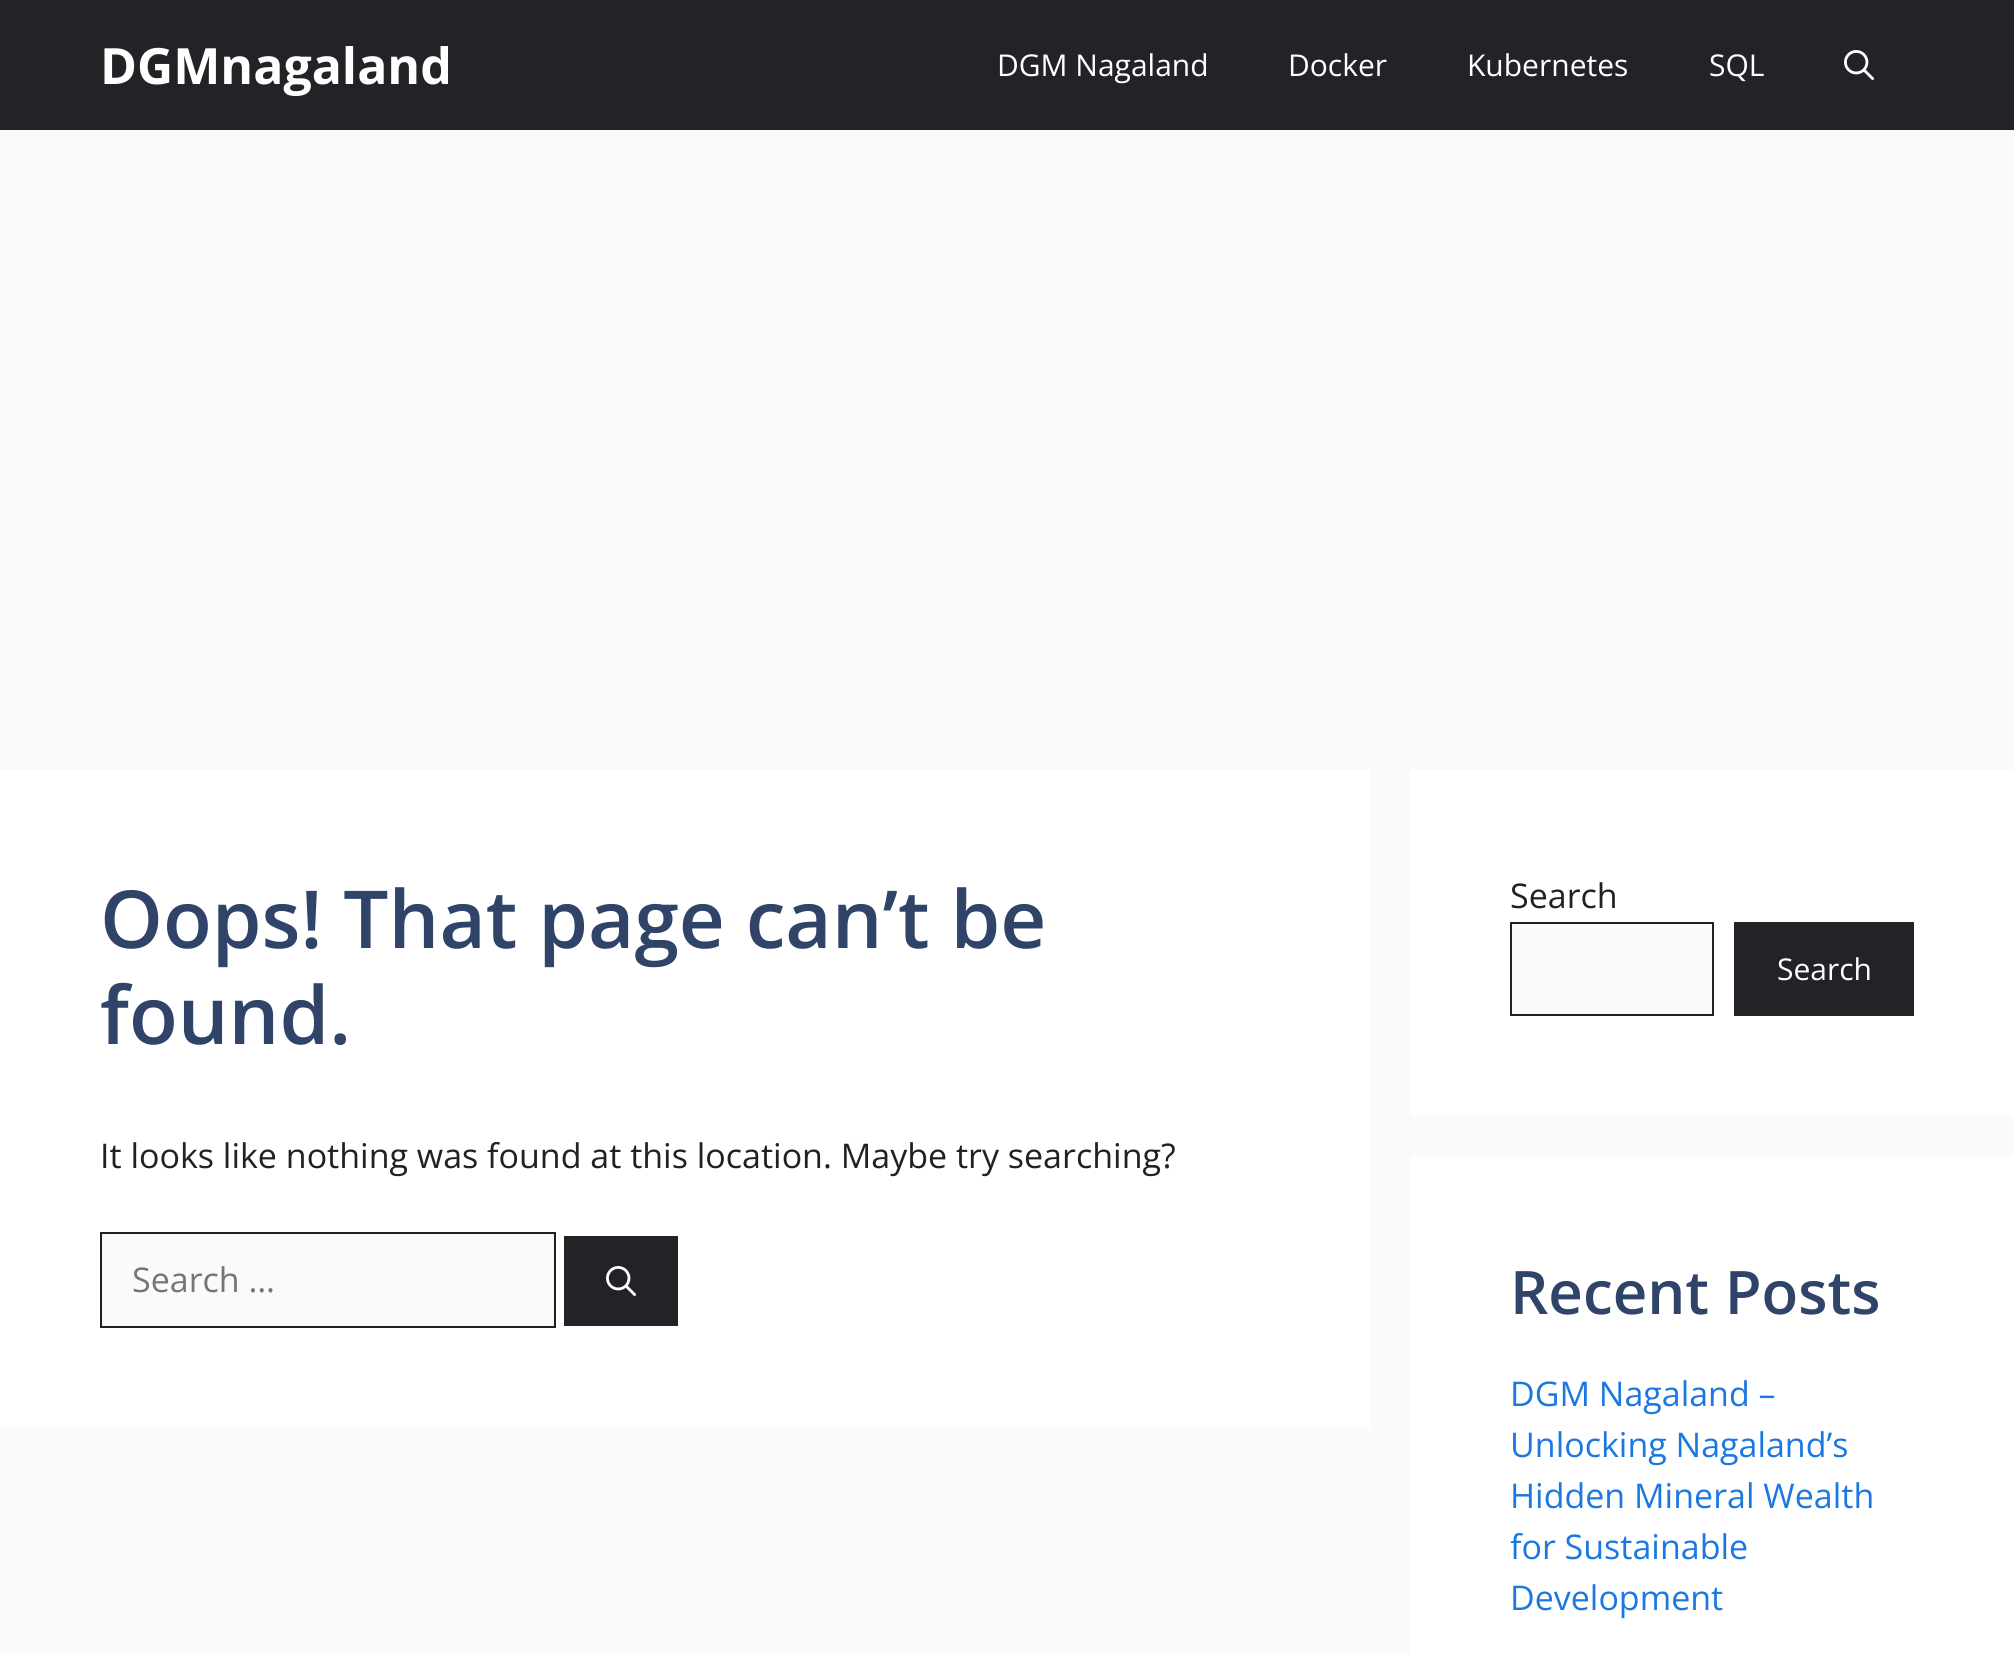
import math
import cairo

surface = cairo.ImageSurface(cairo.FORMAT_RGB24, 2014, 1653)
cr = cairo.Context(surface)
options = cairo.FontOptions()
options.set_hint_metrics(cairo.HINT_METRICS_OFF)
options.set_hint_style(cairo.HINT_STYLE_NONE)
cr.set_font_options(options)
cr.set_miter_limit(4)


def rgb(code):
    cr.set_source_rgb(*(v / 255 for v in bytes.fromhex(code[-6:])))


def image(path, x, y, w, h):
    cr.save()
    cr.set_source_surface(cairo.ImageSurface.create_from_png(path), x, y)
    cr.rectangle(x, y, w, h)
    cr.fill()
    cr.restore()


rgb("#fafafa")
cr.paint()
rgb("#242226")
cr.rectangle(0, 0, 2014, 130)
cr.fill()
image("img/1.png", 1844, 50, 30, 30)
rgb("#ffffff")
cr.rectangle(0, 770, 1370, 658)
cr.fill()
rgb("#fafafa")
cr.rectangle(101, 1233, 454, 94)
cr.fill_preserve()
rgb("#212121")
cr.stroke()
rgb("#242226")
cr.rectangle(564, 1236, 114, 90)
cr.fill()
image("img/1.png", 606, 1266, 30, 30)
rgb("#ffffff")
cr.rectangle(1410, 770, 604, 346)
cr.fill()
rgb("#fafafa")
cr.rectangle(1511, 923, 202, 92)
cr.fill_preserve()
rgb("#212121")
cr.stroke()
rgb("#242226")
cr.rectangle(1734, 922, 180, 94)
cr.fill()
rgb("#ffffff")
cr.rectangle(1410, 1156, 604, 497)
cr.fill()
cr.select_font_face("Open Sans", cairo.FONT_SLANT_NORMAL, cairo.FONT_WEIGHT_BOLD)
cr.set_font_size(50)
cr.move_to(100, 84)
cr.show_text("DGMnagaland")
cr.select_font_face("Open Sans")
cr.set_font_size(30)
for x, y, s in [
    (997, 76, "DGM Nagaland"),
    (1288, 76, "Docker"),
    (1467, 76, "Kubernetes"),
    (1709, 76, "SQL"),
]:
    cr.move_to(x, y)
    cr.show_text(s)
cr.select_font_face("Open Sans SemiBold")
cr.set_font_size(80)
rgb("#2f4468")
cr.move_to(100, 948)
cr.show_text("Oops! That page can’t be")
cr.move_to(100, 1044)
cr.show_text("found.")
cr.select_font_face("Open Sans")
cr.set_font_size(34)
rgb("#212121")
cr.move_to(100, 1168)
cr.show_text("It looks like nothing was found at this location. Maybe try searching?")
rgb("#757575")
cr.move_to(132, 1292)
cr.show_text("Search …")
rgb("#212121")
cr.move_to(1510, 908)
cr.show_text("Search")
cr.set_font_size(30)
rgb("#ffffff")
cr.move_to(1777, 980)
cr.show_text("Search")
cr.select_font_face("Open Sans SemiBold")
cr.set_font_size(60)
rgb("#2f4468")
cr.move_to(1510, 1314)
cr.show_text("Recent Posts")
cr.select_font_face("Open Sans")
cr.set_font_size(34)
rgb("#1b78e2")
for x, y, s in [
    (1510, 1406, "DGM Nagaland –"),
    (1510, 1457, "Unlocking Nagaland’s"),
    (1510, 1508, "Hidden Mineral Wealth"),
    (1510, 1559, "for Sustainable"),
    (1510, 1610, "Development"),
]:
    cr.move_to(x, y)
    cr.show_text(s)
surface.write_to_png("page.png")
